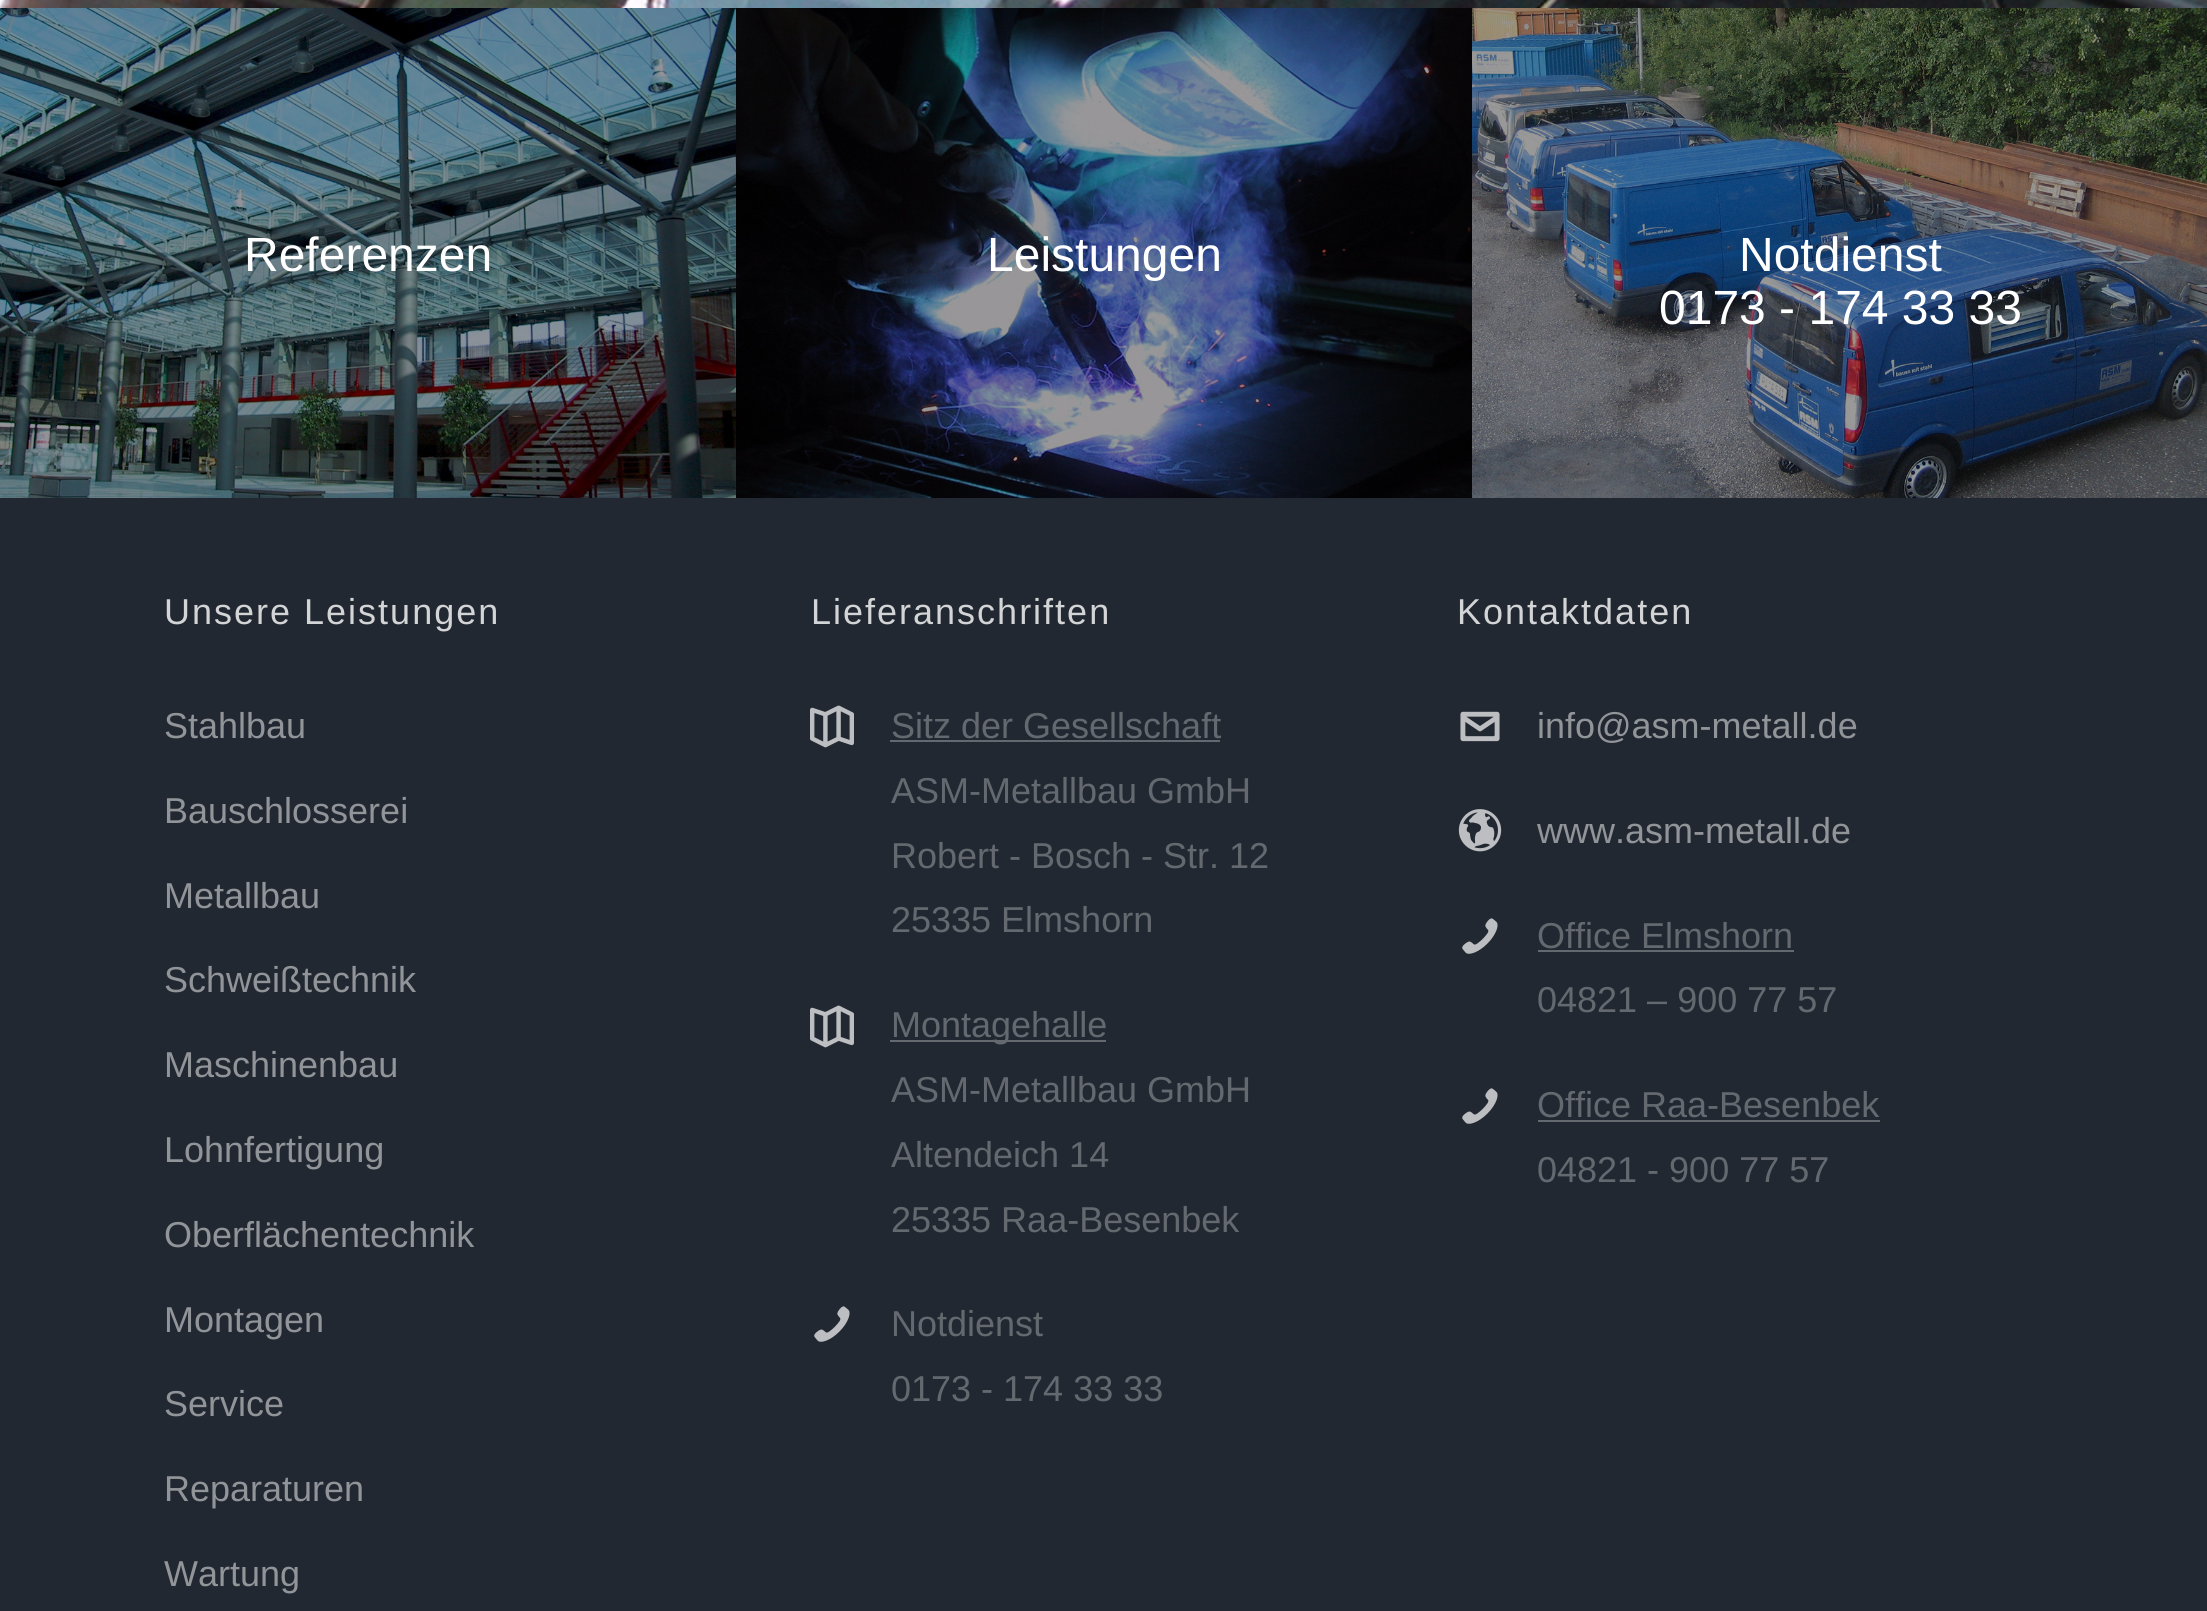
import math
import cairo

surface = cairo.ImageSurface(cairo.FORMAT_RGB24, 2207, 1611)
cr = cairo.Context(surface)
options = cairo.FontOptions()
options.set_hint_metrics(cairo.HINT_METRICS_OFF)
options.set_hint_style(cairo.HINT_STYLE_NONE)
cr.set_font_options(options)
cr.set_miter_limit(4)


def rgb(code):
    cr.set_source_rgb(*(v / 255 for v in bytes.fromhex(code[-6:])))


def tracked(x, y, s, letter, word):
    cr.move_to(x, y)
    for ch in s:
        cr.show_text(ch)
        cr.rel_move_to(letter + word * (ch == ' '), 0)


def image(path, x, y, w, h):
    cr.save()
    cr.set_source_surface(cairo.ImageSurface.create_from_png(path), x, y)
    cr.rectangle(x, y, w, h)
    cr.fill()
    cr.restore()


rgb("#222831")
cr.paint()
image("img/1.png", 0, 0, 2207, 8)
image("img/2.png", 0, 8, 736, 490)
image("img/3.png", 736, 8, 736, 490)
image("img/4.png", 1472, 8, 735, 490)
image("img/5.png", 810, 705, 44, 43)
rgb("#64696f")
cr.rectangle(890, 740, 330, 2)
cr.fill()
image("img/5.png", 810, 1005, 44, 43)
cr.rectangle(890, 1040, 216, 2)
cr.fill()
image("img/6.png", 814, 1306, 36, 36)
image("img/7.png", 1460, 711, 40, 31)
image("img/8.png", 1458, 809, 44, 43)
image("img/6.png", 1462, 918, 36, 36)
cr.rectangle(1538, 950, 256, 2)
cr.fill()
image("img/6.png", 1462, 1088, 36, 36)
cr.rectangle(1538, 1120, 342, 2)
cr.fill()
cr.select_font_face("Liberation Sans")
cr.set_font_size(48)
rgb("#ffffff")
for x, y, s in [
    (244, 271, "Referenzen"),
    (987, 271, "Leistungen"),
    (1739, 271, "Notdienst"),
    (1659, 324, "0173 - 174 33 33"),
]:
    cr.move_to(x, y)
    cr.show_text(s)
cr.set_font_size(36)
rgb("#d3d4d6")
tracked(164, 624, "Unsere Leistungen", 2, 0)
rgb("#919498")
for x, y, s in [
    (164, 738, "Stahlbau"),
    (164, 823, "Bauschlosserei"),
    (164, 908, "Metallbau"),
    (164, 992, "Schweißtechnik"),
    (164, 1077, "Maschinenbau"),
    (164, 1162, "Lohnfertigung"),
    (164, 1247, "Oberflächentechnik"),
    (164, 1332, "Montagen"),
    (164, 1416, "Service"),
    (164, 1501, "Reparaturen"),
    (164, 1586, "Wartung"),
]:
    cr.move_to(x, y)
    cr.show_text(s)
rgb("#d3d4d6")
tracked(811, 624, "Lieferanschriften", 2, 0)
rgb("#64696f")
for x, y, s in [
    (891, 738, "Sitz der Gesellschaft"),
    (891, 803, "ASM-Metallbau GmbH"),
    (891, 868, "Robert - Bosch - Str. 12"),
    (891, 932, "25335 Elmshorn"),
    (891, 1037, "Montagehalle"),
    (891, 1102, "ASM-Metallbau GmbH"),
    (891, 1167, "Altendeich 14"),
    (891, 1232, "25335 Raa-Besenbek"),
    (891, 1336, "Notdienst"),
    (891, 1401, "0173 - 174 33 33"),
]:
    cr.move_to(x, y)
    cr.show_text(s)
rgb("#d3d4d6")
tracked(1457, 624, "Kontaktdaten", 2, 0)
rgb("#919498")
cr.move_to(1537, 738)
cr.show_text("info@asm-metall.de")
cr.move_to(1537, 843)
cr.show_text("www.asm-metall.de")
rgb("#64696f")
for x, y, s in [
    (1537, 948, "Office Elmshorn"),
    (1537, 1012, "04821 – 900 77 57"),
    (1537, 1117, "Office Raa-Besenbek"),
    (1537, 1182, "04821 - 900 77 57"),
]:
    cr.move_to(x, y)
    cr.show_text(s)
surface.write_to_png("page.png")
